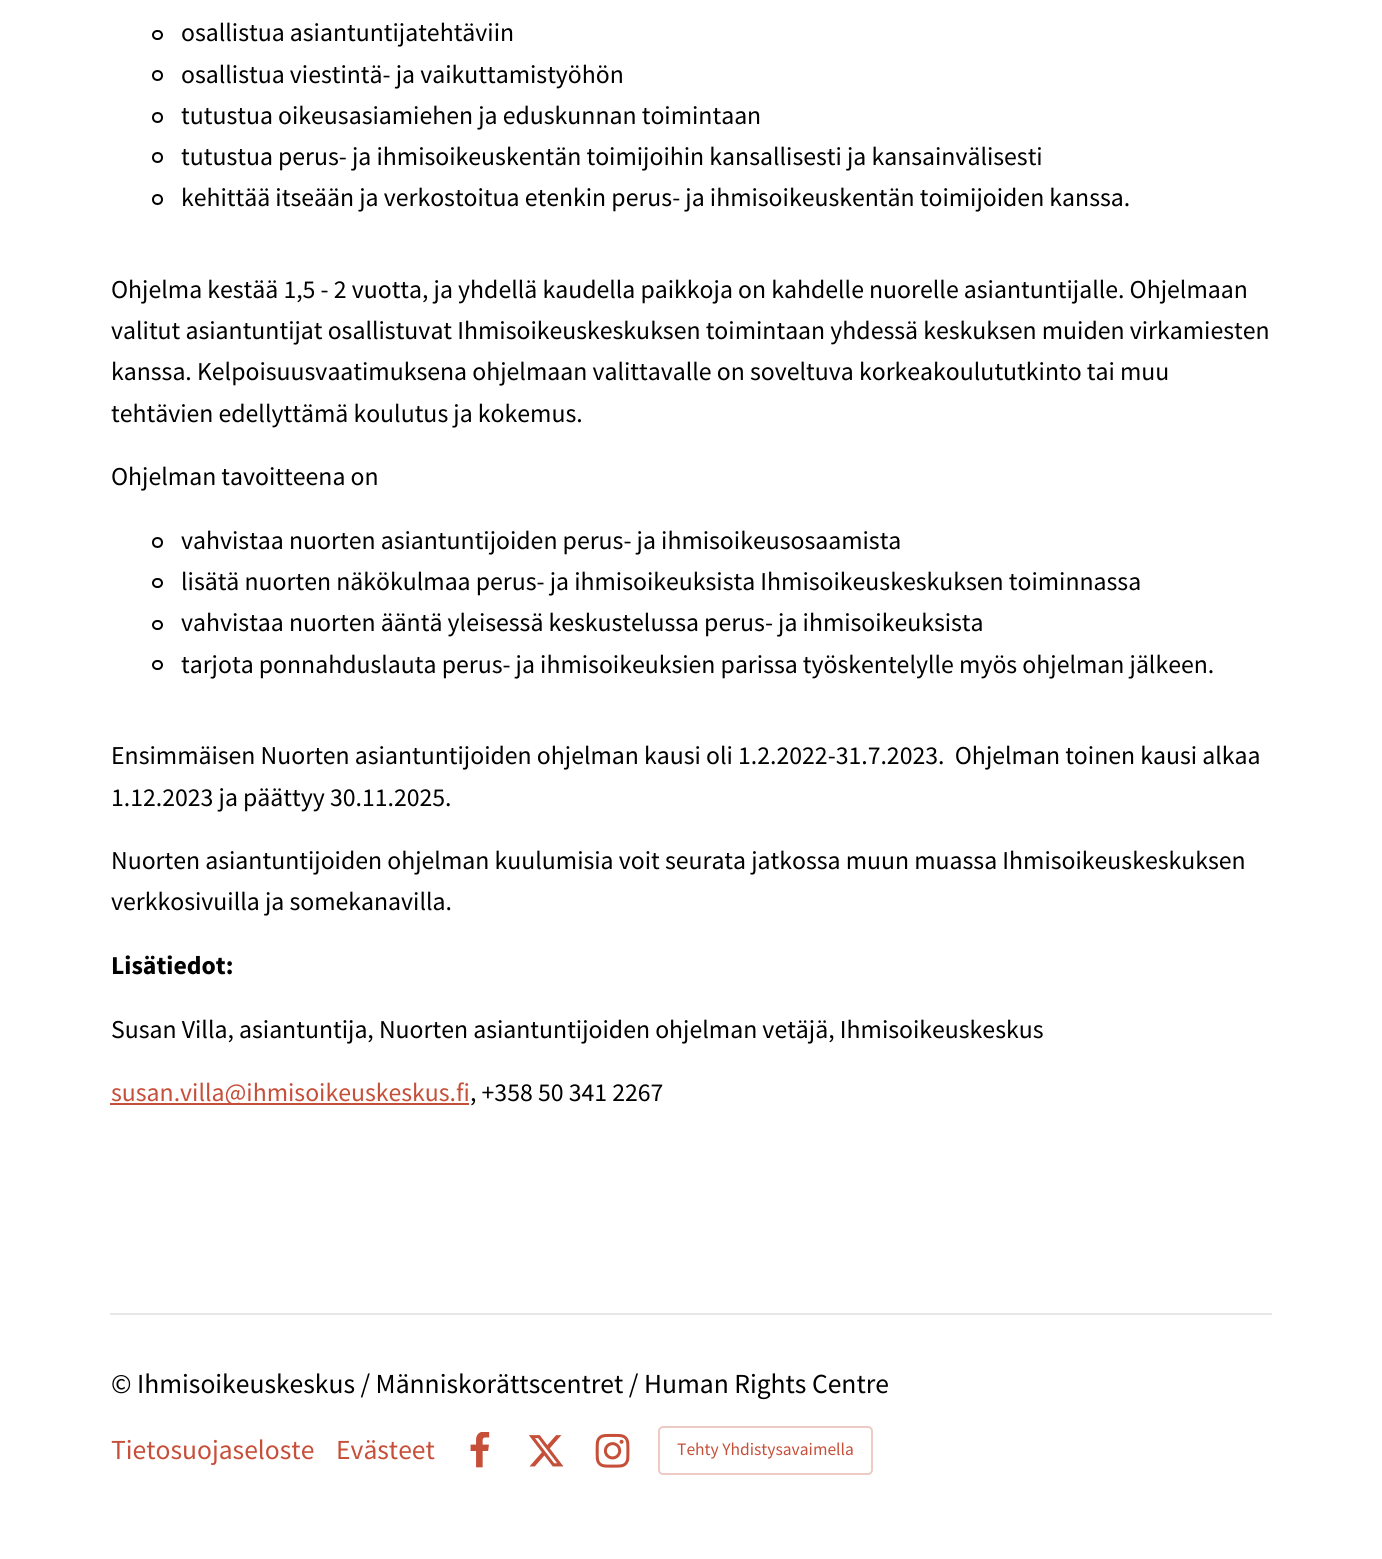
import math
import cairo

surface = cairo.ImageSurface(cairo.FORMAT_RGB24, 1382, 1559)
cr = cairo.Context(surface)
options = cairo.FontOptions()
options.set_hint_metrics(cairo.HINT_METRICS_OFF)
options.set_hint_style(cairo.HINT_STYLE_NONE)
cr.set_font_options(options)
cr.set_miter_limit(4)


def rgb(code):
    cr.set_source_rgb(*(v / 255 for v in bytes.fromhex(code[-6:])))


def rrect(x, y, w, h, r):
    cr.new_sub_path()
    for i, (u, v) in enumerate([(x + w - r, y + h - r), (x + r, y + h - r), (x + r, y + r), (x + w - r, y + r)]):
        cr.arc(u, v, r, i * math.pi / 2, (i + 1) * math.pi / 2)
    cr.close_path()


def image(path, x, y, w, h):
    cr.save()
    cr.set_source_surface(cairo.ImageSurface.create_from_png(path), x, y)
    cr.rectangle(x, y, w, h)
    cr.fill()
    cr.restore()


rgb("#ffffff")
cr.paint()
rrect(153, 31, 9, 8, 4)
rgb("#000000")
cr.stroke()
cr.arc(157.5, 75.5, 4.5, 0, 2 * math.pi)
cr.stroke()
cr.arc(157.5, 117.5, 4.5, 0, 2 * math.pi)
cr.stroke()
cr.arc(157.5, 157.5, 4.5, 0, 2 * math.pi)
cr.stroke()
cr.arc(157.5, 199.5, 4.5, 0, 2 * math.pi)
cr.stroke()
cr.arc(157.5, 542.5, 4.5, 0, 2 * math.pi)
cr.stroke()
rrect(153, 579, 9, 8, 4)
cr.stroke()
rrect(153, 621, 9, 8, 4)
cr.stroke()
rrect(153, 661, 9, 8, 4)
cr.stroke()
rgb("#c64f39")
cr.rectangle(110, 1103, 359, 2)
cr.fill()
rgb("#e6e6e6")
cr.rectangle(110, 1313, 1162, 2)
cr.fill()
image("img/1.png", 470, 1432, 20, 36)
image("img/2.png", 528, 1435, 36, 32)
image("img/3.png", 595, 1433, 35, 35)
rrect(659, 1427, 213, 47, 4)
rgb("#eecac4")
cr.stroke()
cr.select_font_face("Source Sans Pro")
cr.set_font_size(25.75)
rgb("#000000")
for x, y, s in [
    (181, 41, "osallistua asiantuntijatehtäviin"),
    (181, 83, "osallistua viestintä- ja vaikuttamistyöhön"),
    (181, 124, "tutustua oikeusasiamiehen ja eduskunnan toimintaan"),
    (181, 165, "tutustua perus- ja ihmisoikeuskentän toimijoihin kansallisesti ja kansainvälisesti"),
    (181, 206, "kehittää itseään ja verkostoitua etenkin perus- ja ihmisoikeuskentän toimijoiden kanssa."),
    (111, 298, "Ohjelma kestää 1,5 - 2 vuotta, ja yhdellä kaudella paikkoja on kahdelle"),
    (869, 298, "nuorelle asiantuntijalle. Ohjelmaan"),
    (111, 339, "valitut asiantuntijat osallistuvat Ihmisoikeuskeskuksen toimintaan yhdessä keskuksen muiden virkamiesten"),
    (111, 380, "kanssa. Kelpoisuusvaatimuksena ohjelmaan valittavalle on soveltuva korkeakoulututkinto tai muu"),
    (111, 422, "tehtävien edellyttämä koulutus ja kokemus."),
    (111, 485, "Ohjelman tavoitteena on"),
    (181, 549, "vahvistaa nuorten asiantuntijoiden perus- ja ihmisoikeusosaamista"),
    (181, 590, "lisätä nuorten näkökulmaa perus- ja ihmisoikeuksista Ihmisoikeuskeskuksen toiminnassa"),
    (181, 631, "vahvistaa nuorten ääntä yleisessä keskustelussa perus- ja ihmisoikeuksista"),
    (181, 673, "tarjota ponnahduslauta perus- ja ihmisoikeuksien parissa työskentelylle myös ohjelman jälkeen."),
    (111, 764, "Ensimmäisen Nuorten asiantuntijoiden ohjelman kausi oli 1.2.2022-31.7.2023.  Ohjelman toinen kausi alkaa"),
    (111, 806, "1.12.2023 ja päättyy 30.11.2025."),
    (111, 869, "Nuorten asiantuntijoiden ohjelman kuulumisia voit seurata jatkossa muun muassa Ihmisoikeuskeskuksen"),
    (111, 910, "verkkosivuilla ja somekanavilla."),
]:
    cr.move_to(x, y)
    cr.show_text(s)
cr.select_font_face("Source Sans Pro", cairo.FONT_SLANT_NORMAL, cairo.FONT_WEIGHT_BOLD)
cr.move_to(111, 974)
cr.show_text("Lisätiedot:")
cr.select_font_face("Source Sans Pro")
cr.move_to(111, 1038)
cr.show_text("Susan Villa, asiantuntija, Nuorten asiantuntijoiden ohjelman vetäjä, Ihmisoikeuskeskus")
rgb("#c64f39")
cr.move_to(111, 1101)
cr.show_text("susan.villa@ihmisoikeuskeskus.fi")
rgb("#000000")
cr.move_to(470, 1101)
cr.show_text(", +358 50 341 2267")
cr.set_font_size(27.55)
cr.move_to(111, 1393)
cr.show_text("© Ihmisoikeuskeskus / Människorättscentret / Human Rights Centre")
rgb("#c64f39")
cr.move_to(111, 1459)
cr.show_text("Tietosuojaseloste")
cr.move_to(336, 1459)
cr.show_text("Evästeet")
cr.set_font_size(17.5)
cr.move_to(677, 1455)
cr.show_text("Tehty Yhdistysavaimella")
surface.write_to_png("page.png")
